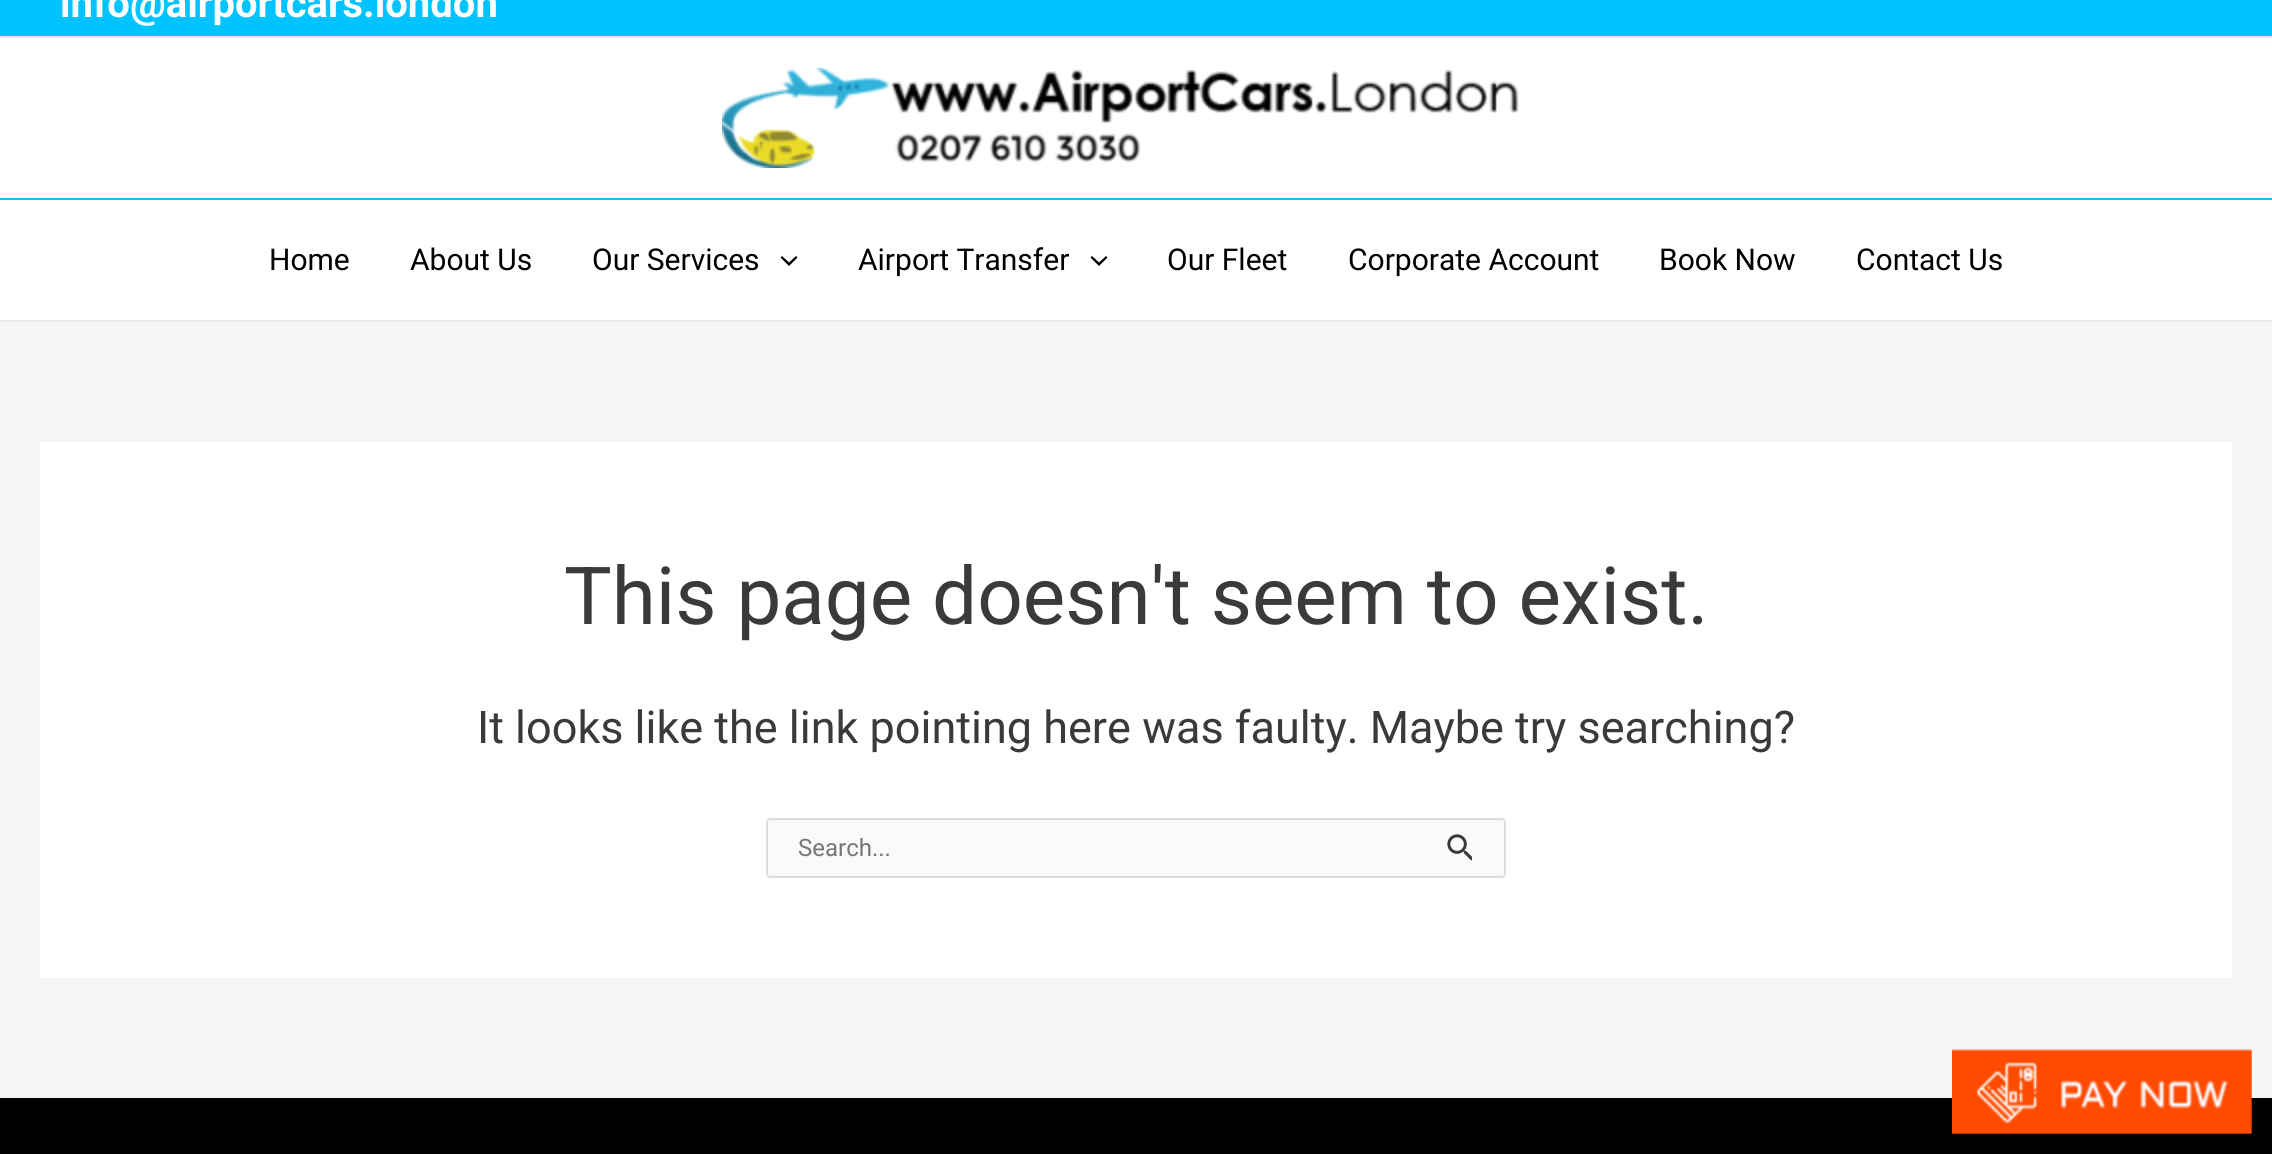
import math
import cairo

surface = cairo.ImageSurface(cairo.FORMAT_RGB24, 2272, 1154)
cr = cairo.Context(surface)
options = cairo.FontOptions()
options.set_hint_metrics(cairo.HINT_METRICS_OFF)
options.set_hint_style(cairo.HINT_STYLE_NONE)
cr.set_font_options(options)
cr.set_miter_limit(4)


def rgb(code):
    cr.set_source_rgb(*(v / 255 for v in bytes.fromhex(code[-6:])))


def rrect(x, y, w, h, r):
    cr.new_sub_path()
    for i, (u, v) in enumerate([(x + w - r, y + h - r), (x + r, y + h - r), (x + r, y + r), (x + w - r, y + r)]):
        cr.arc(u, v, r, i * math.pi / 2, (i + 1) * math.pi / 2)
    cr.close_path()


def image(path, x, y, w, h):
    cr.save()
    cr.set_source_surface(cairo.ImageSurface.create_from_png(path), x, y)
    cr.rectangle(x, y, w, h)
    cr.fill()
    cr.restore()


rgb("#f5f5f5")
cr.paint()
for x, y, w, h, color in [
    (0, 0, 2272, 36, "#00c3ff"),
    (0, 36, 2272, 2, "#e1e6f2"),
    (0, 38, 2272, 160, "#ffffff"),
    (0, 198, 2272, 2, "#00c3ff"),
]:
    rgb(color)
    cr.rectangle(x, y, w, h)
    cr.fill()
image("img/1.png", 722, 68, 797, 100)
rgb("#ffffff")
cr.rectangle(0, 200, 2272, 120)
cr.fill()
rgb("#eaeaea")
cr.rectangle(0, 320, 2272, 2)
cr.fill()
rgb("#000000")
cr.new_path()
cr.move_to(780.5, 257.5)
cr.line_to(789, 266)
cr.line_to(797.5, 257.5)
cr.line_to(796, 256)
cr.line_to(789, 262.5)
cr.line_to(782, 256)
cr.close_path()
cr.fill()
cr.new_path()
cr.move_to(1090.5, 257.5)
cr.line_to(1099, 266)
cr.line_to(1107.5, 257.5)
cr.line_to(1106, 256)
cr.line_to(1099, 262.5)
cr.line_to(1092, 256)
cr.close_path()
cr.fill()
rgb("#ffffff")
cr.rectangle(40, 442, 2192, 536)
cr.fill()
rgb("#fafafa")
rrect(767, 819, 738, 58, 3)
cr.fill_preserve()
rgb("#dddddd")
cr.stroke()
image("img/2.png", 1447, 834, 25, 27)
rgb("#000000")
cr.rectangle(0, 1098, 2272, 56)
cr.fill()
image("img/3.png", 1952, 1049, 300, 85)
cr.select_font_face("Roboto", cairo.FONT_SLANT_NORMAL, cairo.FONT_WEIGHT_BOLD)
cr.set_font_size(40)
rgb("#ffffff")
cr.move_to(60, 17)
cr.show_text("info@airportcars.london")
cr.select_font_face("Roboto")
cr.set_font_size(30)
rgb("#000000")
for x, y, s in [
    (269, 270, "Home"),
    (410, 270, "About Us"),
    (592, 270, "Our Services"),
    (858, 270, "Airport Transfer"),
    (1167, 270, "Our Fleet"),
    (1348, 270, "Corporate Account"),
    (1659, 270, "Book Now"),
    (1856, 270, "Contact Us"),
]:
    cr.move_to(x, y)
    cr.show_text(s)
cr.set_font_size(80)
rgb("#3a3a3a")
cr.move_to(564, 624)
cr.show_text("This page doesn't seem to exist.")
cr.set_font_size(45)
cr.move_to(477, 743)
cr.show_text("It looks like the link pointing here was faulty. Maybe try searching?")
cr.set_font_size(24)
rgb("#757575")
cr.move_to(798, 856)
cr.show_text("Search...")
surface.write_to_png("page.png")
